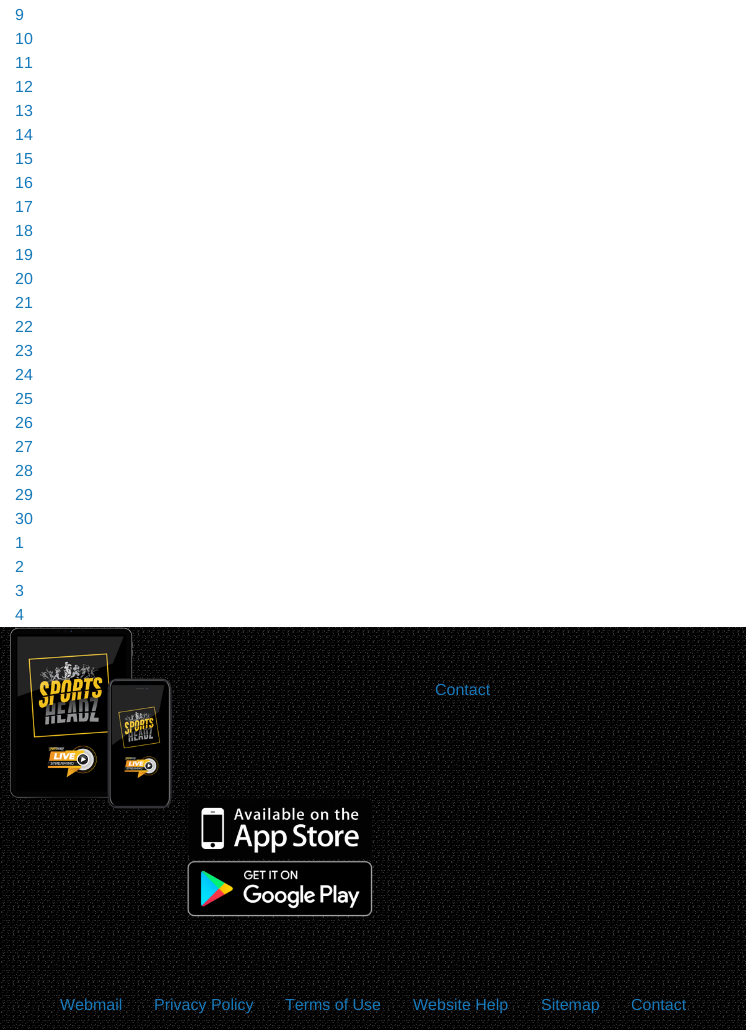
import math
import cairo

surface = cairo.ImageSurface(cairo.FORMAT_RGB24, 746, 1030)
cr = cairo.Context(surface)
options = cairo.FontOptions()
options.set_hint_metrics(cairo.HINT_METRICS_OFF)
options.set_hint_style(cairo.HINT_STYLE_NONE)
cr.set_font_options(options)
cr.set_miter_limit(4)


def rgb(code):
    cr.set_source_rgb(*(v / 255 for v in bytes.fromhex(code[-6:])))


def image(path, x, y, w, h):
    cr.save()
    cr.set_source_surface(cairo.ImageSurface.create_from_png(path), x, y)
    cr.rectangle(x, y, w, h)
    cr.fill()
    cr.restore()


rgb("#000000")
cr.paint()
image("img/1.png", 0, 627, 746, 402)
rgb("#ffffff")
cr.rectangle(0, 0, 746, 627)
cr.fill()
image("img/2.png", 10, 627, 162, 182)
image("img/3.png", 188, 797, 184, 63)
image("img/4.png", 187, 860, 186, 57)
cr.select_font_face("Liberation Sans")
cr.set_font_size(16)
rgb("#1779ba")
for x, y, s in [
    (15, 20, "9"),
    (15, 44, "10"),
    (15, 68, "11"),
    (15, 92, "12"),
    (15, 116, "13"),
    (15, 140, "14"),
    (15, 164, "15"),
    (15, 188, "16"),
    (15, 212, "17"),
    (15, 236, "18"),
    (15, 260, "19"),
    (15, 284, "20"),
    (15, 308, "21"),
    (15, 332, "22"),
    (15, 356, "23"),
    (15, 380, "24"),
    (15, 404, "25"),
    (15, 428, "26"),
    (15, 452, "27"),
    (15, 476, "28"),
    (15, 500, "29"),
    (15, 524, "30"),
    (15, 548, "1"),
    (15, 572, "2"),
    (15, 596, "3"),
    (15, 620, "4"),
    (435, 695, "Contact"),
    (60, 1010, "Webmail"),
    (154, 1010, "Privacy Policy"),
    (285, 1010, "Terms of Use"),
    (413, 1010, "Website Help"),
    (541, 1010, "Sitemap"),
    (631, 1010, "Contact"),
]:
    cr.move_to(x, y)
    cr.show_text(s)
surface.write_to_png("page.png")
